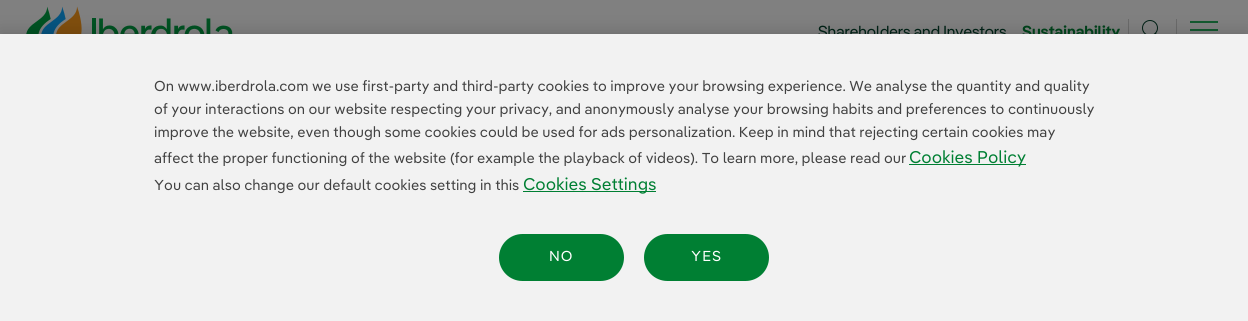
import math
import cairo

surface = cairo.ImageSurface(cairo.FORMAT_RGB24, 1248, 321)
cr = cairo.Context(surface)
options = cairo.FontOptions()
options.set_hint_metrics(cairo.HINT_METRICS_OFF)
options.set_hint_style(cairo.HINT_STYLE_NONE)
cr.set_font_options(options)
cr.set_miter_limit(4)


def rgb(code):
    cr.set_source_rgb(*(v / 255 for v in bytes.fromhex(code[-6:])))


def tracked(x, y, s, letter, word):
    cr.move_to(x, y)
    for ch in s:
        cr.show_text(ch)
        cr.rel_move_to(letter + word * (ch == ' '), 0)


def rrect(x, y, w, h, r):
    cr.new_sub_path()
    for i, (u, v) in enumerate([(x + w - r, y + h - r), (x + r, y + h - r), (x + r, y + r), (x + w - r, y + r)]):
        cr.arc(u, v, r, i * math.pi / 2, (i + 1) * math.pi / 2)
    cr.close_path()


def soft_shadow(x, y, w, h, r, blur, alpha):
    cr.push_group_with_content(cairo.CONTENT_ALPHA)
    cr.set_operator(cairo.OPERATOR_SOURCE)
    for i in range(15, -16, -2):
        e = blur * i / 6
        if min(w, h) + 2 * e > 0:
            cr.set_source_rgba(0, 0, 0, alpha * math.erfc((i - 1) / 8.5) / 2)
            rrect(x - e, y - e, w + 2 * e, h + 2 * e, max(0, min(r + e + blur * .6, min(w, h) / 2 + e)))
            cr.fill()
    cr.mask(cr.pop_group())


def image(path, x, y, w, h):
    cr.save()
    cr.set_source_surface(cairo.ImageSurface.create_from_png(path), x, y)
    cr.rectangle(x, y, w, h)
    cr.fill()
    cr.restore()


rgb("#808080")
cr.paint()
image("img/1.png", 26, 6, 207, 28)
rgb("#6a6a6a")
cr.rectangle(1128, 19, 1, 15)
cr.fill()
cr.arc(1150, 28, 7.5, 0, 2 * math.pi)
rgb("#002015")
cr.set_line_width(1)
cr.stroke()
cr.new_path()
cr.move_to(1155.5, 33.5)
cr.line_to(1161.5, 39.5)
cr.set_line_cap(cairo.LINE_CAP_SQUARE)
cr.stroke()
for x, y, w, h, color in [
    (1176, 19, 1, 15, "#6a6a6a"),
    (1190, 21, 28, 2, "#135930"),
    (1190, 29, 28, 2, "#135930"),
]:
    rgb(color)
    cr.rectangle(x, y, w, h)
    cr.fill()
rgb("#000000")
soft_shadow(0, 34, 1248, 287, 0, 9, 0.2)
cr.select_font_face("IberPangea")
cr.set_font_size(16)
rgb("#002015")
cr.move_to(818, 37)
cr.show_text("Shareholders and Investors")
cr.select_font_face("IberPangea SemiBold")
rgb("#00401a")
cr.move_to(1022, 37)
cr.show_text("Sustainability")
rgb("#f2f2f2")
cr.rectangle(0, 34, 1248, 287)
cr.fill()
cr.select_font_face("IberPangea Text")
cr.set_font_size(14.4)
rgb("#414141")
for x, y, s in [
    (154, 91, "On www.iberdrola.com we use first-party and third-party cookies to improve your browsing experience. We analyse the quantity and quality"),
    (154, 114, "of your interactions on our website respecting your privacy, and anonymously analyse your browsing habits and preferences to continuously"),
    (154, 137, "improve the website, even though some cookies could be used for ads personalization. Keep in mind that rejecting certain cookies may"),
    (154, 163, "affect the proper functioning of the website (for example the playback of videos). To learn more, please read our"),
]:
    cr.move_to(x, y)
    cr.show_text(s)
rgb("#007f33")
cr.rectangle(909, 164, 117, 1)
cr.fill()
cr.set_font_size(17)
cr.move_to(909, 163)
cr.show_text("Cookies Policy")
cr.set_font_size(14.4)
rgb("#414141")
cr.move_to(154, 190)
cr.show_text("You can also change our default cookies setting in this")
rgb("#007f33")
cr.rectangle(523, 191, 133, 1)
cr.fill()
cr.set_font_size(17)
cr.move_to(523, 190)
cr.show_text("Cookies Settings")
rrect(500, 235, 123, 45, 22.5)
cr.fill_preserve()
cr.set_line_width(2)
cr.set_line_cap(cairo.LINE_CAP_BUTT)
cr.stroke()
cr.set_font_size(14.4)
rgb("#ffffff")
tracked(549, 261, "NO", 1, 0)
rgb("#007f33")
rrect(645, 235, 123, 45, 22.5)
cr.fill_preserve()
cr.stroke()
rgb("#ffffff")
tracked(691, 261, "YES", 1, 0)
surface.write_to_png("page.png")
